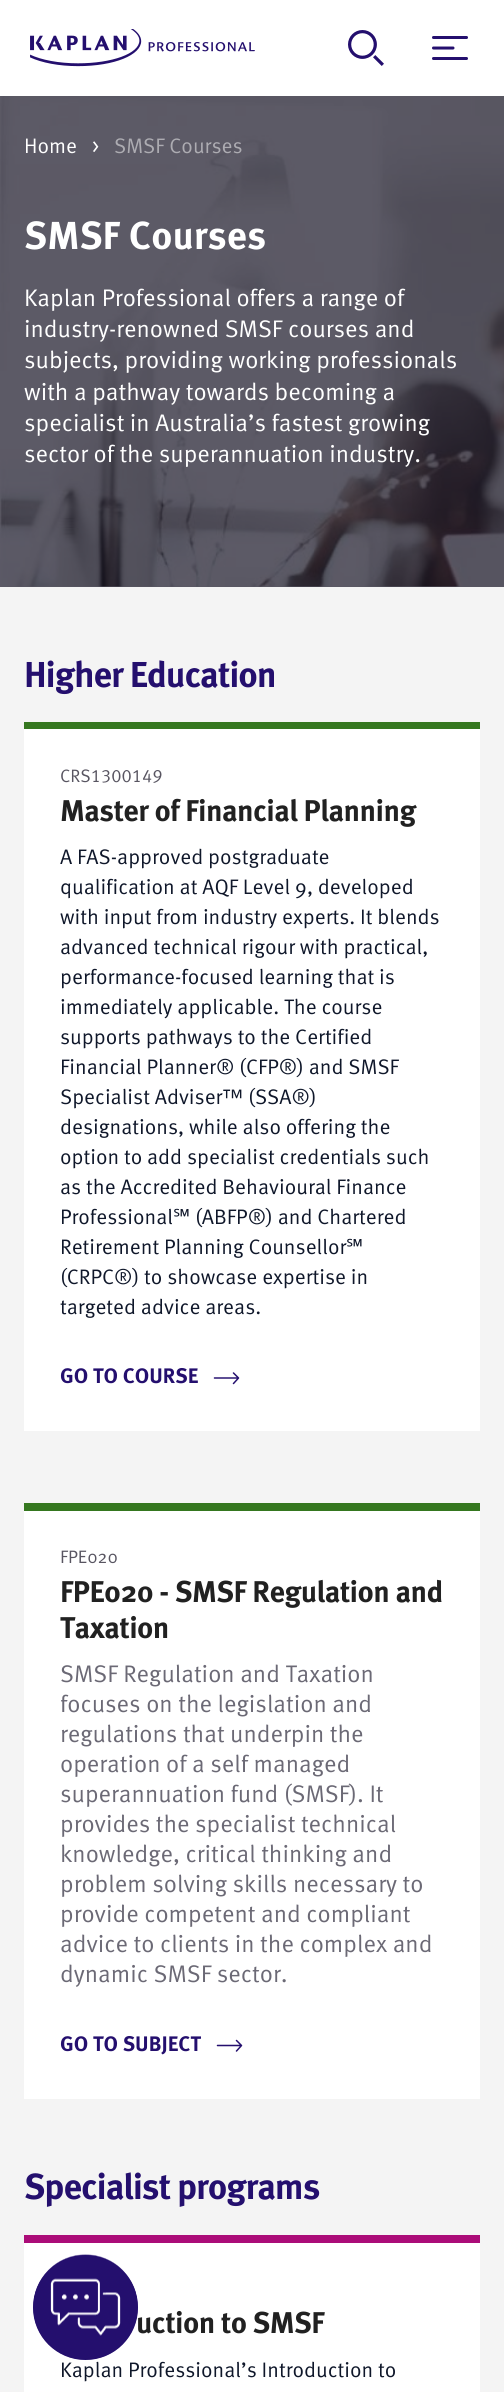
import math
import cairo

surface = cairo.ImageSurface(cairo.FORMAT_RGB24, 504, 2392)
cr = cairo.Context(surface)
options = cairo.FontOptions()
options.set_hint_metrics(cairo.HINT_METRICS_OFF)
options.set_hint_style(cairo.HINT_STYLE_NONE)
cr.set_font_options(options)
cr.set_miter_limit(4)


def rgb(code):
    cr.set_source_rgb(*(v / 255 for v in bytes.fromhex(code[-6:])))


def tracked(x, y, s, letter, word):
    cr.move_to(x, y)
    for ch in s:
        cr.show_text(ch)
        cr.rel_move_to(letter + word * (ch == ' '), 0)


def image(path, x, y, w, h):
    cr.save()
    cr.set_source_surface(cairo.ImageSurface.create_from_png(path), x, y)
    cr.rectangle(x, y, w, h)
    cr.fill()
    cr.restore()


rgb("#ffffff")
cr.paint()
image("img/1.png", 30, 29, 225, 38)
image("img/2.png", 348, 30, 36, 36)
image("img/3.png", 432, 36, 36, 24)
rgb("#595762")
cr.rectangle(0, 586, 504, 1)
cr.fill()
image("img/4.png", 0, 96, 504, 491)
for x, y, w, h, color in [
    (0, 587, 504, 1805, "#f4f4f4"),
    (24, 729, 456, 702, "#ffffff"),
    (24, 722, 456, 7, "#35771f"),
]:
    rgb(color)
    cr.rectangle(x, y, w, h)
    cr.fill()
cr.new_path()
cr.move_to(214.5, 1378)
cr.line_to(238.5, 1378)
cr.move_to(233.5, 1373)
cr.line_to(238.5, 1378)
cr.line_to(233.5, 1383.5)
rgb("#240f6e")
cr.set_line_width(1.5)
cr.set_line_cap(cairo.LINE_CAP_ROUND)
cr.set_line_join(cairo.LINE_JOIN_ROUND)
cr.stroke()
rgb("#ffffff")
cr.rectangle(24, 1511, 456, 588)
cr.fill()
rgb("#35771f")
cr.rectangle(24, 1503, 456, 8)
cr.fill()
cr.new_path()
cr.move_to(217.5, 2045.5)
cr.line_to(241.5, 2045.5)
cr.move_to(236.5, 2040.5)
cr.line_to(241.5, 2045.5)
cr.line_to(236.5, 2051)
rgb("#240f6e")
cr.stroke()
rgb("#ffffff")
cr.rectangle(24, 2243, 456, 149)
cr.fill()
rgb("#ab0c78")
cr.rectangle(24, 2235, 456, 8)
cr.fill()
rgb("#240f6e")
cr.arc(85.5, 2307.5, 52.5, 0, 2 * math.pi)
cr.fill()
image("img/5.png", 33, 2254, 105, 106)
cr.select_font_face("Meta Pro")
cr.set_font_size(21)
rgb("#ffffff")
cr.move_to(24, 153)
cr.show_text("Home")
cr.move_to(92, 153)
cr.show_text(">")
rgb("#adacb2")
cr.move_to(114, 153)
cr.show_text("SMSF Courses")
cr.select_font_face("Meta Pro", cairo.FONT_SLANT_NORMAL, cairo.FONT_WEIGHT_BOLD)
cr.set_font_size(39)
rgb("#ffffff")
cr.move_to(24, 249)
cr.show_text("SMSF Courses")
cr.select_font_face("Meta Pro")
cr.set_font_size(24)
for x, y, s in [
    (24, 306, "Kaplan Professional offers a range of"),
    (24, 337, "industry-renowned SMSF courses and"),
    (24, 368, "subjects, providing working professionals"),
    (24, 400, "with a pathway towards becoming a"),
    (24, 431, "specialist in Australia’s fastest growing"),
    (24, 462, "sector of the superannuation industry."),
]:
    cr.move_to(x, y)
    cr.show_text(s)
cr.select_font_face("Meta Pro", cairo.FONT_SLANT_NORMAL, cairo.FONT_WEIGHT_BOLD)
cr.set_font_size(36)
rgb("#240f6e")
tracked(24, 687, "Higher Education", -1.1, 0)
cr.select_font_face("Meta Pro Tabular")
cr.set_font_size(18)
rgb("#585561")
cr.move_to(60, 782)
cr.show_text("CRS1300149")
cr.select_font_face("Meta Pro", cairo.FONT_SLANT_NORMAL, cairo.FONT_WEIGHT_BOLD)
cr.set_font_size(30)
rgb("#212121")
tracked(60, 821, "Master of Financial Planning", -0.6, 0)
cr.select_font_face("Meta Pro")
cr.set_font_size(21)
rgb("#0f172a")
for x, y, s in [
    (60, 864, "A FAS-approved postgraduate"),
    (60, 894, "qualification at AQF Level 9, developed"),
    (60, 924, "with input from industry experts. It blends"),
    (60, 954, "advanced technical rigour with practical,"),
    (60, 984, "performance-focused learning that is"),
    (60, 1014, "immediately applicable. The course"),
    (60, 1044, "supports pathways to the Certified"),
    (60, 1074, "Financial Planner® (CFP®) and SMSF"),
    (60, 1104, "Specialist Adviser™ (SSA®)"),
    (60, 1134, "designations, while also offering the"),
    (60, 1164, "option to add specialist credentials such"),
    (60, 1194, "as the Accredited Behavioural Finance"),
    (60, 1224, "Professional"),
]:
    cr.move_to(x, y)
    cr.show_text(s)
cr.select_font_face("Noto Sans")
cr.move_to(173, 1224)
cr.show_text("℠")
cr.select_font_face("Meta Pro")
cr.move_to(195, 1224)
cr.show_text("(ABFP®) and Chartered")
cr.move_to(60, 1254)
cr.show_text("Retirement Planning Counsellor")
cr.select_font_face("Noto Sans")
cr.move_to(346, 1254)
cr.show_text("℠")
cr.select_font_face("Meta Pro")
cr.move_to(60, 1284)
cr.show_text("(CRPC®) to showcase expertise in")
cr.move_to(60, 1314)
cr.show_text("targeted advice areas.")
cr.select_font_face("Meta Pro", cairo.FONT_SLANT_NORMAL, cairo.FONT_WEIGHT_BOLD)
rgb("#240f6e")
cr.move_to(60, 1383)
cr.show_text("GO TO COURSE")
cr.select_font_face("Meta Pro")
cr.set_font_size(18)
rgb("#585561")
cr.move_to(60, 1563)
cr.show_text("FPE020")
cr.select_font_face("Meta Pro", cairo.FONT_SLANT_NORMAL, cairo.FONT_WEIGHT_BOLD)
cr.set_font_size(30)
rgb("#212121")
tracked(60, 1602, "FPE020 - SMSF Regulation and", -0.6, 0)
tracked(60, 1638, "Taxation", -0.6, 0)
cr.select_font_face("Meta Pro")
cr.set_font_size(24)
rgb("#6b6975")
for x, y, s in [
    (60, 1682, "SMSF Regulation and Taxation"),
    (60, 1712, "focuses on the legislation and"),
    (60, 1742, "regulations that underpin the"),
    (60, 1772, "operation of a self managed"),
    (60, 1802, "superannuation fund (SMSF). It"),
    (60, 1832, "provides the specialist technical"),
    (60, 1862, "knowledge, critical thinking and"),
    (60, 1892, "problem solving skills necessary to"),
    (60, 1922, "provide competent and compliant"),
    (60, 1952, "advice to clients in the complex and"),
    (60, 1982, "dynamic SMSF sector."),
]:
    cr.move_to(x, y)
    cr.show_text(s)
cr.select_font_face("Meta Pro", cairo.FONT_SLANT_NORMAL, cairo.FONT_WEIGHT_BOLD)
cr.set_font_size(21)
rgb("#240f6e")
cr.move_to(60, 2051)
cr.show_text("GO TO SUBJECT")
cr.set_font_size(36)
tracked(24, 2199, "Specialist programs", -1.1, 0)
cr.set_font_size(30)
rgb("#212121")
tracked(136, 2333, "uction to SMSF", -0.6, 0)
cr.select_font_face("Meta Pro")
cr.set_font_size(21)
rgb("#0f172a")
cr.move_to(60, 2377)
cr.show_text("Kaplan Professional’s Introduction to")
surface.write_to_png("page.png")
